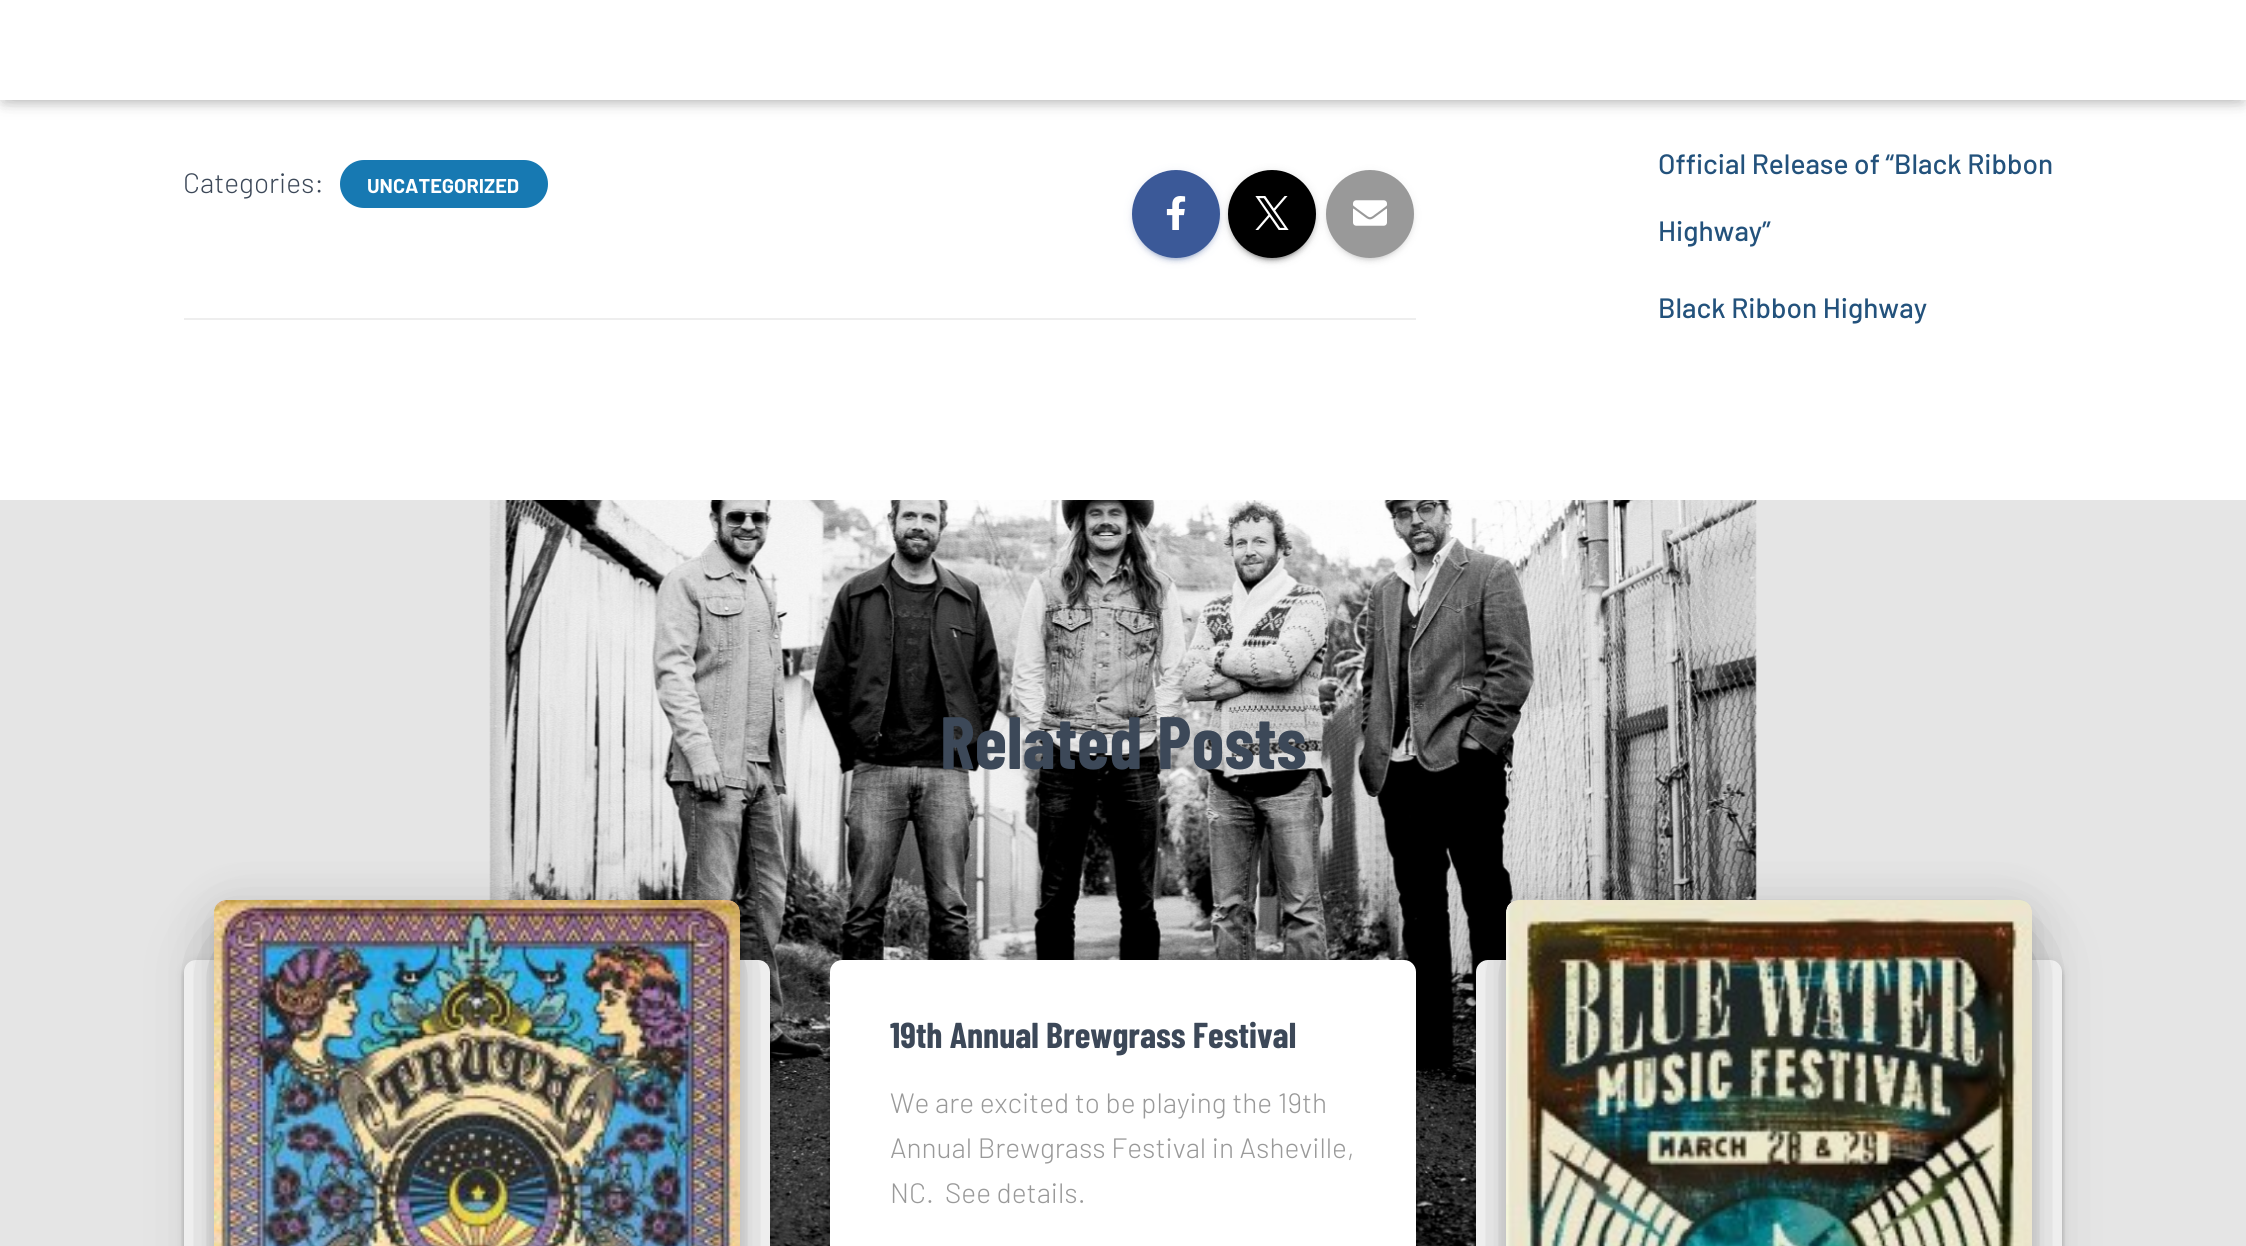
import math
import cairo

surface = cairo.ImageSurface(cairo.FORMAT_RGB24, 2246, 1246)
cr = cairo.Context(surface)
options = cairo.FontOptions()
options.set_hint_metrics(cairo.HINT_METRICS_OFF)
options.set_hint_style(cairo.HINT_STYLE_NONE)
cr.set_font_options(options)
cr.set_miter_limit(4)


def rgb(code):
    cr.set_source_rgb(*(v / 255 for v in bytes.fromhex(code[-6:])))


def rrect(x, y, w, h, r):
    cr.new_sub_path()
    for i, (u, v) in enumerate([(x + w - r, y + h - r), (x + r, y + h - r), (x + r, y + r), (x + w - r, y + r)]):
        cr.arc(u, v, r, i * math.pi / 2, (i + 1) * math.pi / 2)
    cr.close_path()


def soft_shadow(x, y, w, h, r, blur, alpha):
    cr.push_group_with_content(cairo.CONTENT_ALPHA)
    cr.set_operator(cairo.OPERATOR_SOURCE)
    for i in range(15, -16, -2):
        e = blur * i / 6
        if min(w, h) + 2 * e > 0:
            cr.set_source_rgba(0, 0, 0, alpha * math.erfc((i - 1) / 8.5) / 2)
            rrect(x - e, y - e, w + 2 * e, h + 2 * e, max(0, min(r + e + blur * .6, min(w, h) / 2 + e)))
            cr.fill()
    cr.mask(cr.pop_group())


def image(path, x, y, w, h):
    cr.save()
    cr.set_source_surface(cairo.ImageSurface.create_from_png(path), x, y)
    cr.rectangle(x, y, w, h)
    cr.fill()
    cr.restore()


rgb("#e5e5e5")
cr.paint()
image("img/1.png", 489, 500, 1268, 746)
rgb("#ffffff")
cr.rectangle(0, 100, 2246, 400)
cr.fill()
rgb("#000000")
soft_shadow(4, 12, 2238, 92, 0, 5, 0.1)
soft_shadow(0, 2, 2246, 100, 0, 10, 0.12)
soft_shadow(12, 14, 2222, 76, 0, 10, 0.42)
rgb("#ffffff")
cr.rectangle(0, 0, 2246, 100)
cr.fill()
rgb("#1779b2")
rrect(340, 160, 208, 48, 24)
cr.fill()
rgb("#3b5998")
soft_shadow(1132, 172, 88, 88, 44, 5, 0.12)
soft_shadow(1136, 180, 80, 80, 40, 1, 0.2)
soft_shadow(1132, 174, 88, 88, 44, 2, 0.14)
rgb("#3b5998")
cr.arc(1176, 214, 44, 0, 2 * math.pi)
cr.fill()
image("img/2.png", 1166, 196, 20, 34)
rgb("#000000")
soft_shadow(1228, 172, 88, 88, 44, 5, 0.12)
soft_shadow(1232, 180, 80, 80, 40, 1, 0.2)
soft_shadow(1228, 174, 88, 88, 44, 2, 0.14)
rgb("#000000")
cr.arc(1272, 214, 44, 0, 2 * math.pi)
cr.fill()
image("img/3.png", 1255, 196, 34, 34)
rgb("#999999")
soft_shadow(1326, 172, 88, 88, 44, 5, 0.12)
soft_shadow(1330, 180, 80, 80, 40, 1, 0.2)
soft_shadow(1326, 174, 88, 88, 44, 2, 0.14)
rgb("#999999")
cr.arc(1370, 214, 44, 0, 2 * math.pi)
cr.fill()
image("img/4.png", 1353, 200, 34, 26)
rgb("#eeeeee")
cr.rectangle(184, 318, 1232, 2)
cr.fill()
rgb("#000000")
soft_shadow(184, 962, 586, 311, 12, 5, 0.12)
soft_shadow(184, 964, 586, 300, 12, 2, 0.14)
rgb("#ffffff")
rrect(184, 960, 586, 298, 12)
cr.fill()
rgb("#000000")
soft_shadow(224, 926, 506, 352, 2, 10, 0.2)
soft_shadow(214, 908, 526, 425, 12, 25, 0.12)
soft_shadow(238, 956, 478, 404, 0, 38, 0.56)
image("img/5.png", 214, 900, 526, 346)
soft_shadow(830, 962, 586, 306, 12, 5, 0.12)
soft_shadow(830, 964, 586, 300, 12, 2, 0.14)
rgb("#ffffff")
rrect(830, 960, 586, 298, 12)
cr.fill()
rgb("#000000")
soft_shadow(1476, 962, 586, 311, 12, 5, 0.12)
soft_shadow(1476, 964, 586, 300, 12, 2, 0.14)
rgb("#ffffff")
rrect(1476, 960, 586, 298, 12)
cr.fill()
rgb("#000000")
soft_shadow(1516, 926, 506, 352, 2, 10, 0.2)
soft_shadow(1506, 908, 526, 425, 12, 25, 0.12)
soft_shadow(1530, 956, 478, 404, 0, 38, 0.56)
image("img/6.png", 1506, 900, 526, 346)
cr.select_font_face("Barlow Light")
cr.set_font_size(28)
rgb("#3c4858")
cr.move_to(183, 193)
cr.show_text("Categories:")
cr.select_font_face("Barlow", cairo.FONT_SLANT_NORMAL, cairo.FONT_WEIGHT_BOLD)
cr.set_font_size(20)
rgb("#ffffff")
cr.move_to(367, 193)
cr.show_text("UNCATEGORIZED")
cr.select_font_face("Barlow Medium")
cr.set_font_size(28)
rgb("#23527c")
for x, y, s in [
    (1658, 174, "Official Release of “Black Ribbon"),
    (1658, 241, "Highway”"),
    (1658, 318, "Black Ribbon Highway"),
]:
    cr.move_to(x, y)
    cr.show_text(s)
cr.select_font_face("Barlow Condensed", cairo.FONT_SLANT_NORMAL, cairo.FONT_WEIGHT_BOLD)
cr.set_font_size(74)
rgb("#3c4858")
cr.move_to(940, 769)
cr.show_text("Related Posts")
cr.set_font_size(36)
cr.move_to(890, 1048)
cr.show_text("19th Annual Brewgrass Festival")
cr.select_font_face("Barlow Light")
cr.set_font_size(28)
rgb("#999999")
for x, y, s in [
    (890, 1113, "We are excited to be playing the 19th"),
    (890, 1158, "Annual Brewgrass Festival in Asheville,"),
    (890, 1203, "NC.  See details."),
]:
    cr.move_to(x, y)
    cr.show_text(s)
surface.write_to_png("page.png")
